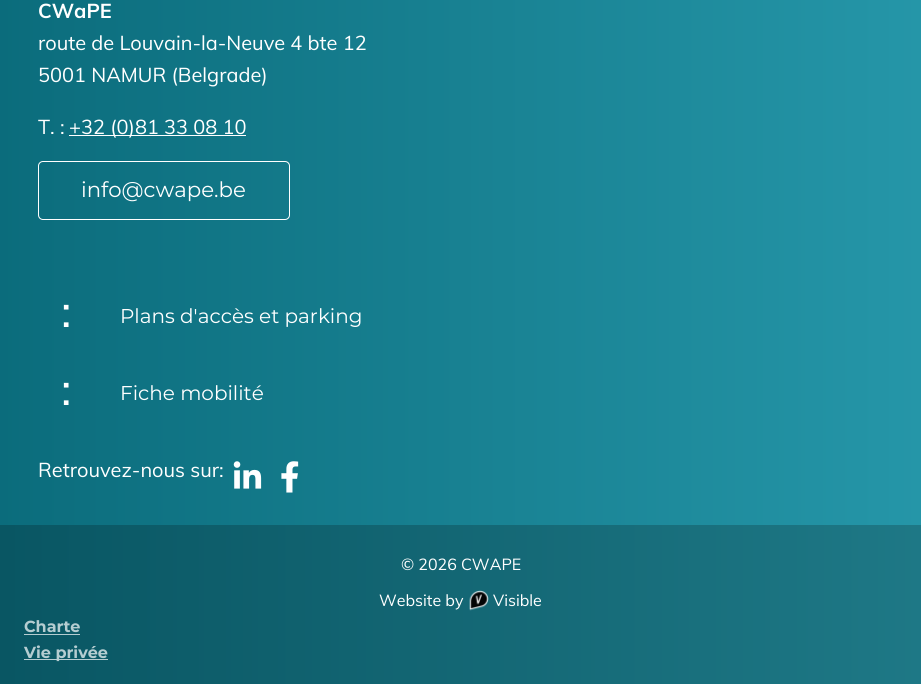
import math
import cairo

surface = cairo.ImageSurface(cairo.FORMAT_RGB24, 921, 684)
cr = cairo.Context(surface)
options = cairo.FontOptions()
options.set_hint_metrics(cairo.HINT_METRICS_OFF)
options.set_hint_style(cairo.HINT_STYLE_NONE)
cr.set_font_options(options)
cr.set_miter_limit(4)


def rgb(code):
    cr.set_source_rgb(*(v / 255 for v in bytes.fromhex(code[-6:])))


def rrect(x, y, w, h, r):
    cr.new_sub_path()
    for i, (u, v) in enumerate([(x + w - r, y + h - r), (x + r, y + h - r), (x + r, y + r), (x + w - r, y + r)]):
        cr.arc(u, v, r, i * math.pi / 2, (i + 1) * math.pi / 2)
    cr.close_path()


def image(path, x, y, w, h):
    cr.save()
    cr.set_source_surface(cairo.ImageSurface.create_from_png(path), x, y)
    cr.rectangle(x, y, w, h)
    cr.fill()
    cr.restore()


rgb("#ffffff")
cr.paint()
gradient = cairo.LinearGradient(0, 264, 921, 264)
gradient.add_color_stop_rgba(0, 0.043, 0.424, 0.486, 1)
gradient.add_color_stop_rgba(1, 0.145, 0.588, 0.659, 1)
cr.set_source(gradient)
cr.rectangle(0, 0, 921, 525)
cr.fill()
gradient = cairo.LinearGradient(0, 264, 921, 264)
gradient.add_color_stop_rgba(0, 0.035, 0.337, 0.388, 1)
gradient.add_color_stop_rgba(1, 0.118, 0.471, 0.525, 1)
cr.set_source(gradient)
cr.rectangle(0, 525, 921, 159)
cr.fill()
gradient = cairo.LinearGradient(0, 264, 921, 264)
gradient.add_color_stop_rgba(0, 0.71, 0.8, 0.816, 1)
gradient.add_color_stop_rgba(1, 0.737, 0.843, 0.859, 1)
cr.set_source(gradient)
cr.rectangle(24, 659, 84, 1)
cr.fill()
rgb("#ffffff")
cr.rectangle(69, 135, 177, 1)
cr.fill()
rrect(38.5, 161.5, 251, 58, 4.5)
cr.set_line_width(1)
cr.stroke()
image("img/1.png", 233, 461, 29, 28)
image("img/2.png", 281, 461, 18, 32)
image("img/3.png", 469, 590, 20, 21)
rgb("#b5cdd1")
cr.rectangle(24, 634, 56, 1)
cr.fill()
cr.select_font_face("Muli", cairo.FONT_SLANT_NORMAL, cairo.FONT_WEIGHT_BOLD)
cr.set_font_size(20)
rgb("#ffffff")
cr.move_to(38, 18)
cr.show_text("CWaPE")
cr.select_font_face("Muli")
for x, y, s in [
    (38, 50, "route de Louvain-la-Neuve 4 bte 12"),
    (38, 82, "5001 NAMUR (Belgrade)"),
    (38, 134, "T. :"),
    (69, 134, "+32 (0)81 33 08 10"),
]:
    cr.move_to(x, y)
    cr.show_text(s)
cr.select_font_face("Montserrat")
cr.set_font_size(21.25)
cr.move_to(81, 197)
cr.show_text("info@cwape.be")
cr.select_font_face("Muli")
cr.set_font_size(45)
cr.move_to(61, 327)
cr.show_text(":")
cr.select_font_face("Montserrat")
cr.set_font_size(20)
cr.move_to(120, 323)
cr.show_text("Plans d'accès et parking")
cr.select_font_face("Muli")
cr.set_font_size(45)
cr.move_to(61, 405)
cr.show_text(":")
cr.select_font_face("Montserrat")
cr.set_font_size(20)
cr.move_to(120, 400)
cr.show_text("Fiche mobilité")
cr.select_font_face("Muli")
cr.move_to(38, 477)
cr.show_text("Retrouvez-nous sur:")
cr.set_font_size(16)
for x, y, s in [
    (401, 570, "© 2026 CWAPE"),
    (379, 606, "Website by"),
    (493, 606, "Visible"),
]:
    cr.move_to(x, y)
    cr.show_text(s)
cr.select_font_face("Montserrat", cairo.FONT_SLANT_NORMAL, cairo.FONT_WEIGHT_BOLD)
rgb("#b5cdd1")
cr.move_to(24, 632)
cr.show_text("Charte")
cr.move_to(24, 658)
cr.show_text("Vie privée")
surface.write_to_png("page.png")
